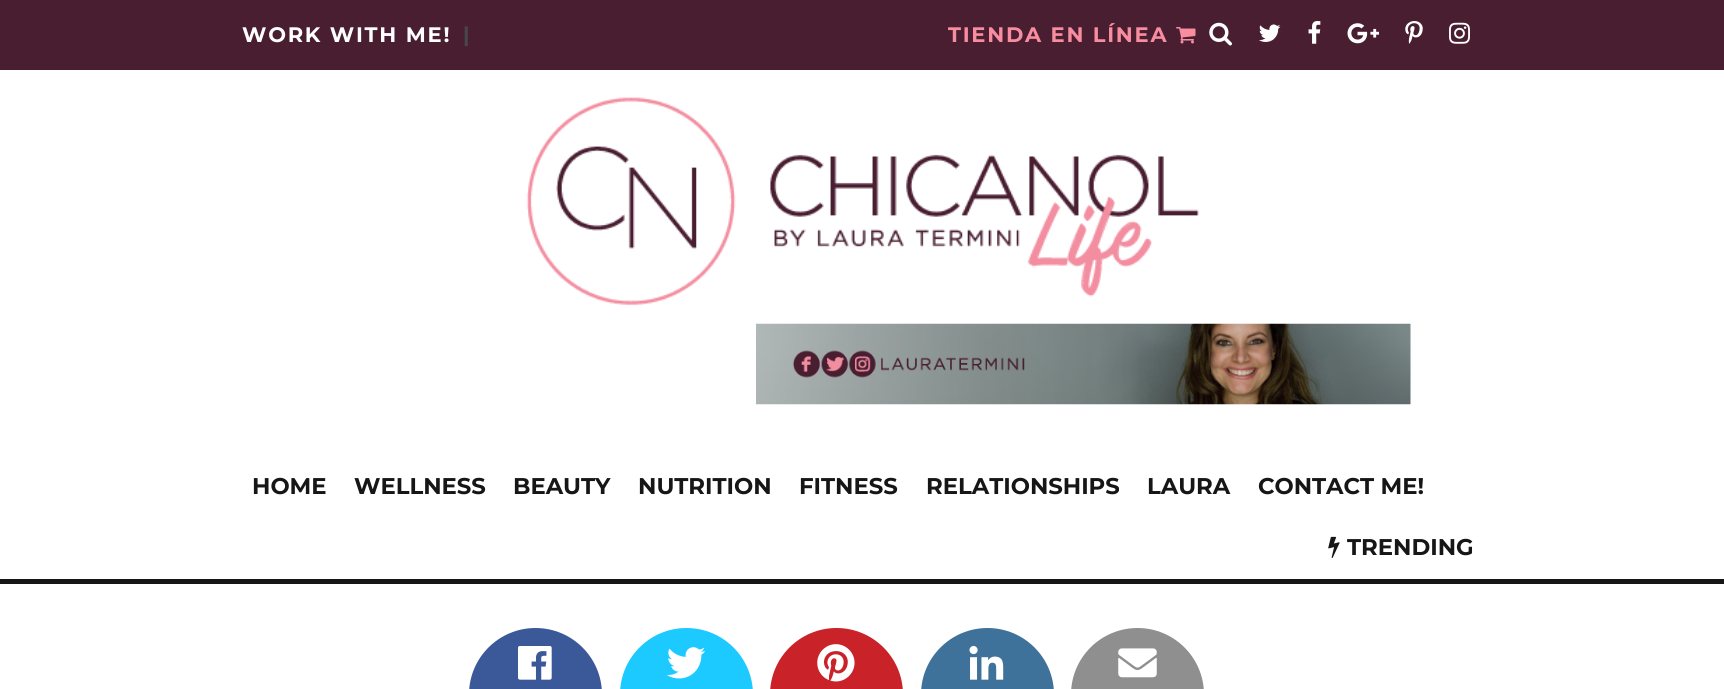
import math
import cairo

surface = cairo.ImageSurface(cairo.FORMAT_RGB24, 1724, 689)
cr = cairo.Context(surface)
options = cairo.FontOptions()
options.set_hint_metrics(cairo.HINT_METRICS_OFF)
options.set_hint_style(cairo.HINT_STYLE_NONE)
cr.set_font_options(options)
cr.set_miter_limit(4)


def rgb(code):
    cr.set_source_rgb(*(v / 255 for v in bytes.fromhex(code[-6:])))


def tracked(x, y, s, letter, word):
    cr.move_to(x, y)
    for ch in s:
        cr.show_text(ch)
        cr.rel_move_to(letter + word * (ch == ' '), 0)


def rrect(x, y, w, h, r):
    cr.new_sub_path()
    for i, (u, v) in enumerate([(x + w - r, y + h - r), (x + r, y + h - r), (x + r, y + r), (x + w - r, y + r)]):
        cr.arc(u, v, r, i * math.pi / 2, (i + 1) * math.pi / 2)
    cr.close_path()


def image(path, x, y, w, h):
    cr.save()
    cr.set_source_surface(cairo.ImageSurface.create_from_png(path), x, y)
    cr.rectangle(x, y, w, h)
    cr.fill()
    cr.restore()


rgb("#ffffff")
cr.paint()
rgb("#491e31")
cr.rectangle(0, 0, 1724, 70)
cr.fill()
image("img/1.png", 1176, 27, 20, 17)
image("img/2.png", 1209, 22, 23, 24)
image("img/3.png", 1259, 24, 22, 18)
image("img/4.png", 1308, 21, 13, 23)
image("img/5.png", 1347, 23, 32, 21)
image("img/6.png", 1405, 21, 18, 23)
image("img/7.png", 1449, 22, 21, 22)
image("img/8.png", 526, 97, 673, 209)
image("img/9.png", 756, 323, 655, 82)
rgb("#161616")
cr.rectangle(0, 579, 1724, 5)
cr.fill()
image("img/10.png", 1328, 536, 12, 22)
rgb("#3b5998")
rrect(469, 628, 133, 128, 66.5)
cr.fill()
image("img/11.png", 518, 646, 34, 34)
rgb("#1dcaff")
rrect(620, 628, 133, 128, 66.5)
cr.fill()
image("img/12.png", 667, 647, 38, 32)
rgb("#c92228")
rrect(770, 628, 133, 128, 66.5)
cr.fill()
image("img/13.png", 817, 644, 38, 38)
rgb("#3f729b")
rrect(921, 628, 133, 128, 66.5)
cr.fill()
image("img/14.png", 969, 646, 35, 34)
rgb("#8f8f8f")
rrect(1071, 628, 133, 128, 66.5)
cr.fill()
image("img/15.png", 1118, 648, 39, 30)
cr.select_font_face("Montserrat", cairo.FONT_SLANT_NORMAL, cairo.FONT_WEIGHT_BOLD)
cr.set_font_size(21)
rgb("#ffffff")
tracked(242, 42, "WORK WITH ME!", 1.75, 0)
rgb("#484848")
tracked(463, 42, "|", 1.75, 0)
rgb("#f78d9f")
tracked(948, 42, "TIENDA EN LÍNEA", 1.75, 0)
cr.set_font_size(22.75)
rgb("#161616")
for x, y, s in [
    (252, 494, "HOME"),
    (354, 494, "WELLNESS"),
    (513, 494, "BEAUTY"),
    (638, 494, "NUTRITION"),
    (799, 494, "FITNESS"),
    (926, 494, "RELATIONSHIPS"),
    (1147, 494, "LAURA"),
    (1258, 494, "CONTACT ME!"),
    (1347, 555, "TRENDING"),
]:
    cr.move_to(x, y)
    cr.show_text(s)
surface.write_to_png("page.png")
